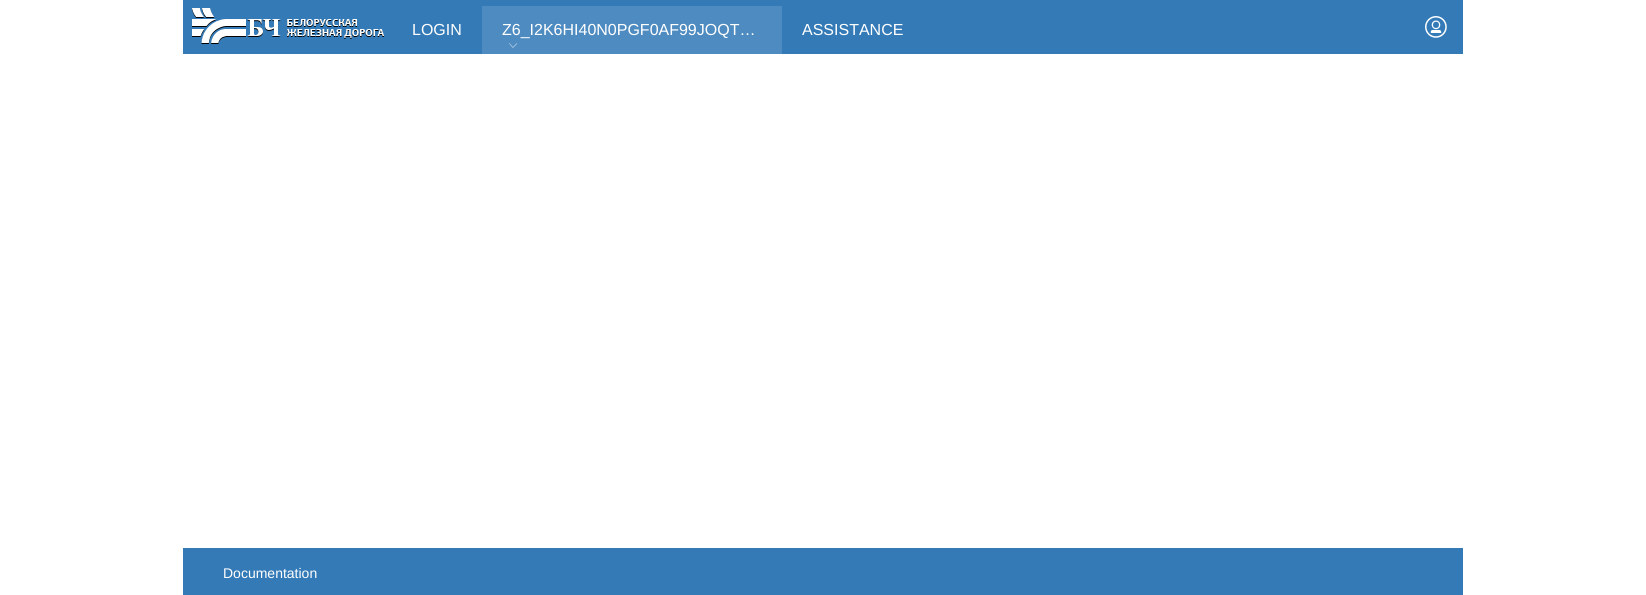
import math
import cairo

surface = cairo.ImageSurface(cairo.FORMAT_RGB24, 1646, 595)
cr = cairo.Context(surface)
options = cairo.FontOptions()
options.set_hint_metrics(cairo.HINT_METRICS_OFF)
options.set_hint_style(cairo.HINT_STYLE_NONE)
cr.set_font_options(options)
cr.set_miter_limit(4)


def rgb(code):
    cr.set_source_rgb(*(v / 255 for v in bytes.fromhex(code[-6:])))


def image(path, x, y, w, h):
    cr.save()
    cr.set_source_surface(cairo.ImageSurface.create_from_png(path), x, y)
    cr.rectangle(x, y, w, h)
    cr.fill()
    cr.restore()


rgb("#ffffff")
cr.paint()
rgb("#337ab7")
cr.rectangle(183, 0, 1280, 54)
cr.fill()
image("img/1.png", 191, 8, 193, 36)
rgb("#4e8bc0")
cr.rectangle(482, 6, 300, 48)
cr.fill()
image("img/2.png", 509, 43, 9, 5)
image("img/3.png", 1425, 16, 22, 22)
rgb("#337ab7")
cr.rectangle(183, 548, 1280, 47)
cr.fill()
cr.select_font_face("Liberation Sans")
cr.set_font_size(16)
rgb("#ffffff")
for x, y, s in [
    (412, 35, "LOGIN"),
    (502, 35, "Z6_I2K6HI40N0PGF0AF99JOQT…"),
    (802, 35, "ASSISTANCE"),
]:
    cr.move_to(x, y)
    cr.show_text(s)
cr.set_font_size(14)
cr.move_to(223, 578)
cr.show_text("Documentation")
surface.write_to_png("page.png")
